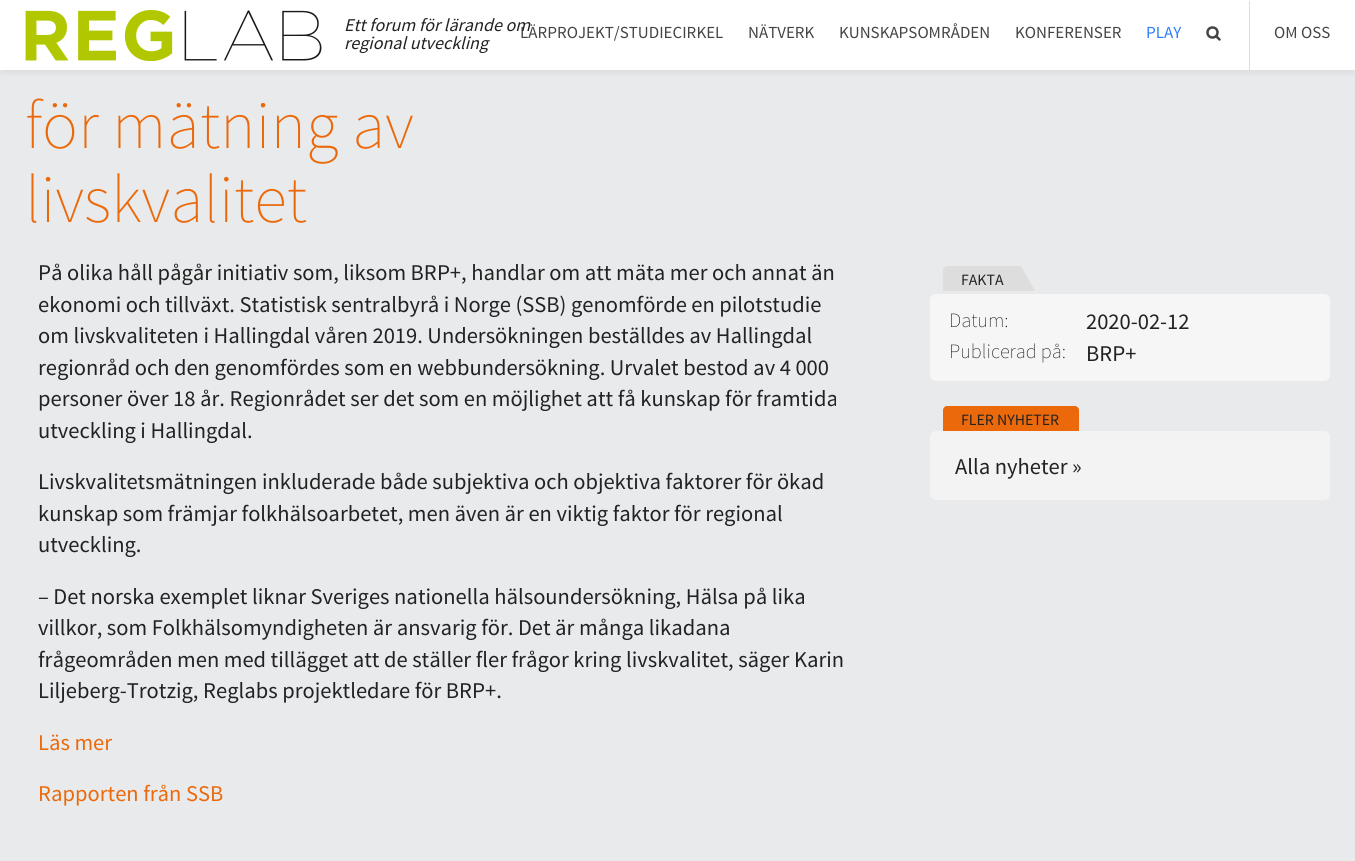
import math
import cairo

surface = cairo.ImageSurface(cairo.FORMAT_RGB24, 1355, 861)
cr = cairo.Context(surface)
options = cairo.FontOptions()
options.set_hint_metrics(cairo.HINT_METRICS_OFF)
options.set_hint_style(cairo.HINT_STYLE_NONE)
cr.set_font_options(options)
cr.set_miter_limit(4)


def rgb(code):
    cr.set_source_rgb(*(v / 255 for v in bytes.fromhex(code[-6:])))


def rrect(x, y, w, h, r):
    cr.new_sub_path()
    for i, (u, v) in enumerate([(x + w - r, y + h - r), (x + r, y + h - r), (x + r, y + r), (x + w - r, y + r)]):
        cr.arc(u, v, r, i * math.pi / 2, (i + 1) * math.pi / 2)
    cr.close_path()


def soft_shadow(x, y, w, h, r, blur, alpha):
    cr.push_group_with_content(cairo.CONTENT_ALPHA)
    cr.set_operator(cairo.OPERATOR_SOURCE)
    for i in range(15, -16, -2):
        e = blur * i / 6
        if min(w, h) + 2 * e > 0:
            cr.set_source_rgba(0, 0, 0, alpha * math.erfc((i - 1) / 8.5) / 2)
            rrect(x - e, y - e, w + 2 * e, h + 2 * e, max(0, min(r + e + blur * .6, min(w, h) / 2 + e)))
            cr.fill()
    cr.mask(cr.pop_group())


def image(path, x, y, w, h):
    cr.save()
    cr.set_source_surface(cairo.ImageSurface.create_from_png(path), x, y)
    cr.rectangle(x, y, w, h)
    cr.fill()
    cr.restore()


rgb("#e9eaec")
cr.paint()
rgb("#000000")
soft_shadow(1, 4, 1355, 70, 0, 2, 0.05)
rgb("#ffffff")
cr.rectangle(0, 0, 1355, 70)
cr.fill()
image("img/1.png", 25, 10, 297, 51)
cr.arc(1212.5, 32.5, 5, 0, 2 * math.pi)
rgb("#444444")
cr.set_line_width(2.5)
cr.stroke()
cr.new_path()
cr.move_to(1216, 36)
cr.line_to(1219.5, 39.5)
cr.set_line_cap(cairo.LINE_CAP_ROUND)
cr.stroke()
rgb("#dddddd")
cr.rectangle(1249, 1, 1, 70)
cr.fill()
cr.new_path()
cr.move_to(947, 266)
cr.line_to(1019, 266)
cr.curve_to(1021, 266, 1023, 268, 1023, 270)
cr.line_to(1023, 291)
cr.line_to(943, 291)
cr.line_to(943, 270)
cr.curve_to(943, 268, 945, 266, 947, 266)
cr.close_path()
cr.fill()
cr.new_path()
cr.move_to(1035, 291)
cr.line_to(1022.5, 291)
cr.line_to(1022.5, 269)
cr.close_path()
cr.fill()
rgb("#f6f6f6")
rrect(930, 294, 400, 87, 6)
cr.fill()
rgb("#f3f3f3")
rrect(930, 431, 400, 69, 6)
cr.fill()
rgb("#eb690b")
cr.new_path()
cr.move_to(947, 406)
cr.line_to(1075, 406)
cr.curve_to(1077, 406, 1079, 408, 1079, 410)
cr.line_to(1079, 431)
cr.line_to(943, 431)
cr.line_to(943, 410)
cr.curve_to(943, 408, 945, 406, 947, 406)
cr.close_path()
cr.fill()
cr.select_font_face("Source Sans Pro", cairo.FONT_SLANT_ITALIC)
cr.set_font_size(18)
rgb("#222222")
cr.move_to(344, 49)
cr.show_text("regional utveckling")
cr.select_font_face("Source Sans Pro")
cr.set_font_size(16.9)
rgb("#444444")
cr.move_to(520, 38)
cr.show_text("LÄRPROJEKT/STUDIECIRKEL")
cr.select_font_face("Source Sans Pro", cairo.FONT_SLANT_ITALIC)
cr.set_font_size(18)
rgb("#222222")
cr.move_to(344, 31)
cr.show_text("Ett forum för lärande om")
cr.select_font_face("Source Sans Pro")
cr.set_font_size(16.9)
rgb("#444444")
for x, y, s in [
    (748, 38, "NÄTVERK"),
    (839, 38, "KUNSKAPSOMRÅDEN"),
    (1015, 38, "KONFERENSER"),
]:
    cr.move_to(x, y)
    cr.show_text(s)
rgb("#2e7cfe")
cr.move_to(1146, 38)
cr.show_text("PLAY")
rgb("#444444")
cr.move_to(1274, 38)
cr.show_text("OM OSS")
cr.select_font_face("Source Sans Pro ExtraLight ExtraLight")
cr.set_font_size(67.5)
rgb("#eb690b")
cr.move_to(25, 148)
cr.show_text("för mätning av")
cr.move_to(25, 222)
cr.show_text("livskvalitet")
cr.select_font_face("Source Sans Pro")
cr.set_font_size(22.5)
rgb("#222222")
for x, y, s in [
    (38, 280, "På olika håll pågår initiativ som, liksom BRP+, handlar om att mäta mer och annat än"),
    (38, 312, "ekonomi och tillväxt. Statistisk sentralbyrå i Norge (SSB) genomförde en pilotstudie"),
    (38, 343, "om livskvaliteten i Hallingdal våren 2019. Undersökningen beställdes av Hallingdal"),
    (38, 375, "regionråd och den genomfördes som en webbundersökning. Urvalet bestod av 4 000"),
    (38, 406, "personer över 18 år. Regionrådet ser det som en möjlighet att få kunskap för framtida"),
    (38, 438, "utveckling i Hallingdal."),
    (38, 489, "Livskvalitetsmätningen inkluderade både subjektiva och objektiva faktorer för ökad"),
    (38, 521, "kunskap som främjar folkhälsoarbetet, men även är en viktig faktor för regional"),
    (38, 552, "utveckling."),
    (38, 604, "– Det norska exemplet liknar Sveriges nationella hälsoundersökning, Hälsa på lika"),
    (38, 635, "villkor, som Folkhälsomyndigheten är ansvarig för. Det är många likadana"),
    (38, 667, "frågeområden men med tillägget att de ställer fler frågor kring livskvalitet, säger Karin"),
    (38, 698, "Liljeberg-Trotzig, Reglabs projektledare för BRP+."),
]:
    cr.move_to(x, y)
    cr.show_text(s)
rgb("#eb690b")
cr.move_to(38, 750)
cr.show_text("Läs mer")
cr.move_to(38, 801)
cr.show_text("Rapporten från SSB")
cr.set_font_size(15.75)
rgb("#222222")
cr.move_to(961, 285)
cr.show_text("FAKTA")
cr.select_font_face("Source Sans Pro ExtraLight ExtraLight")
cr.set_font_size(20.25)
cr.move_to(949, 327)
cr.show_text("Datum:")
cr.select_font_face("Source Sans Pro")
cr.set_font_size(22.5)
cr.move_to(1086, 329)
cr.show_text("2020-02-12")
cr.select_font_face("Source Sans Pro ExtraLight ExtraLight")
cr.set_font_size(20.25)
cr.move_to(949, 358)
cr.show_text("Publicerad på:")
cr.select_font_face("Source Sans Pro")
cr.set_font_size(22.5)
cr.move_to(1086, 361)
cr.show_text("BRP+")
cr.set_font_size(15.75)
cr.move_to(961, 425)
cr.show_text("FLER NYHETER")
cr.set_font_size(22.5)
cr.move_to(955, 474)
cr.show_text("Alla nyheter »")
surface.write_to_png("page.png")
